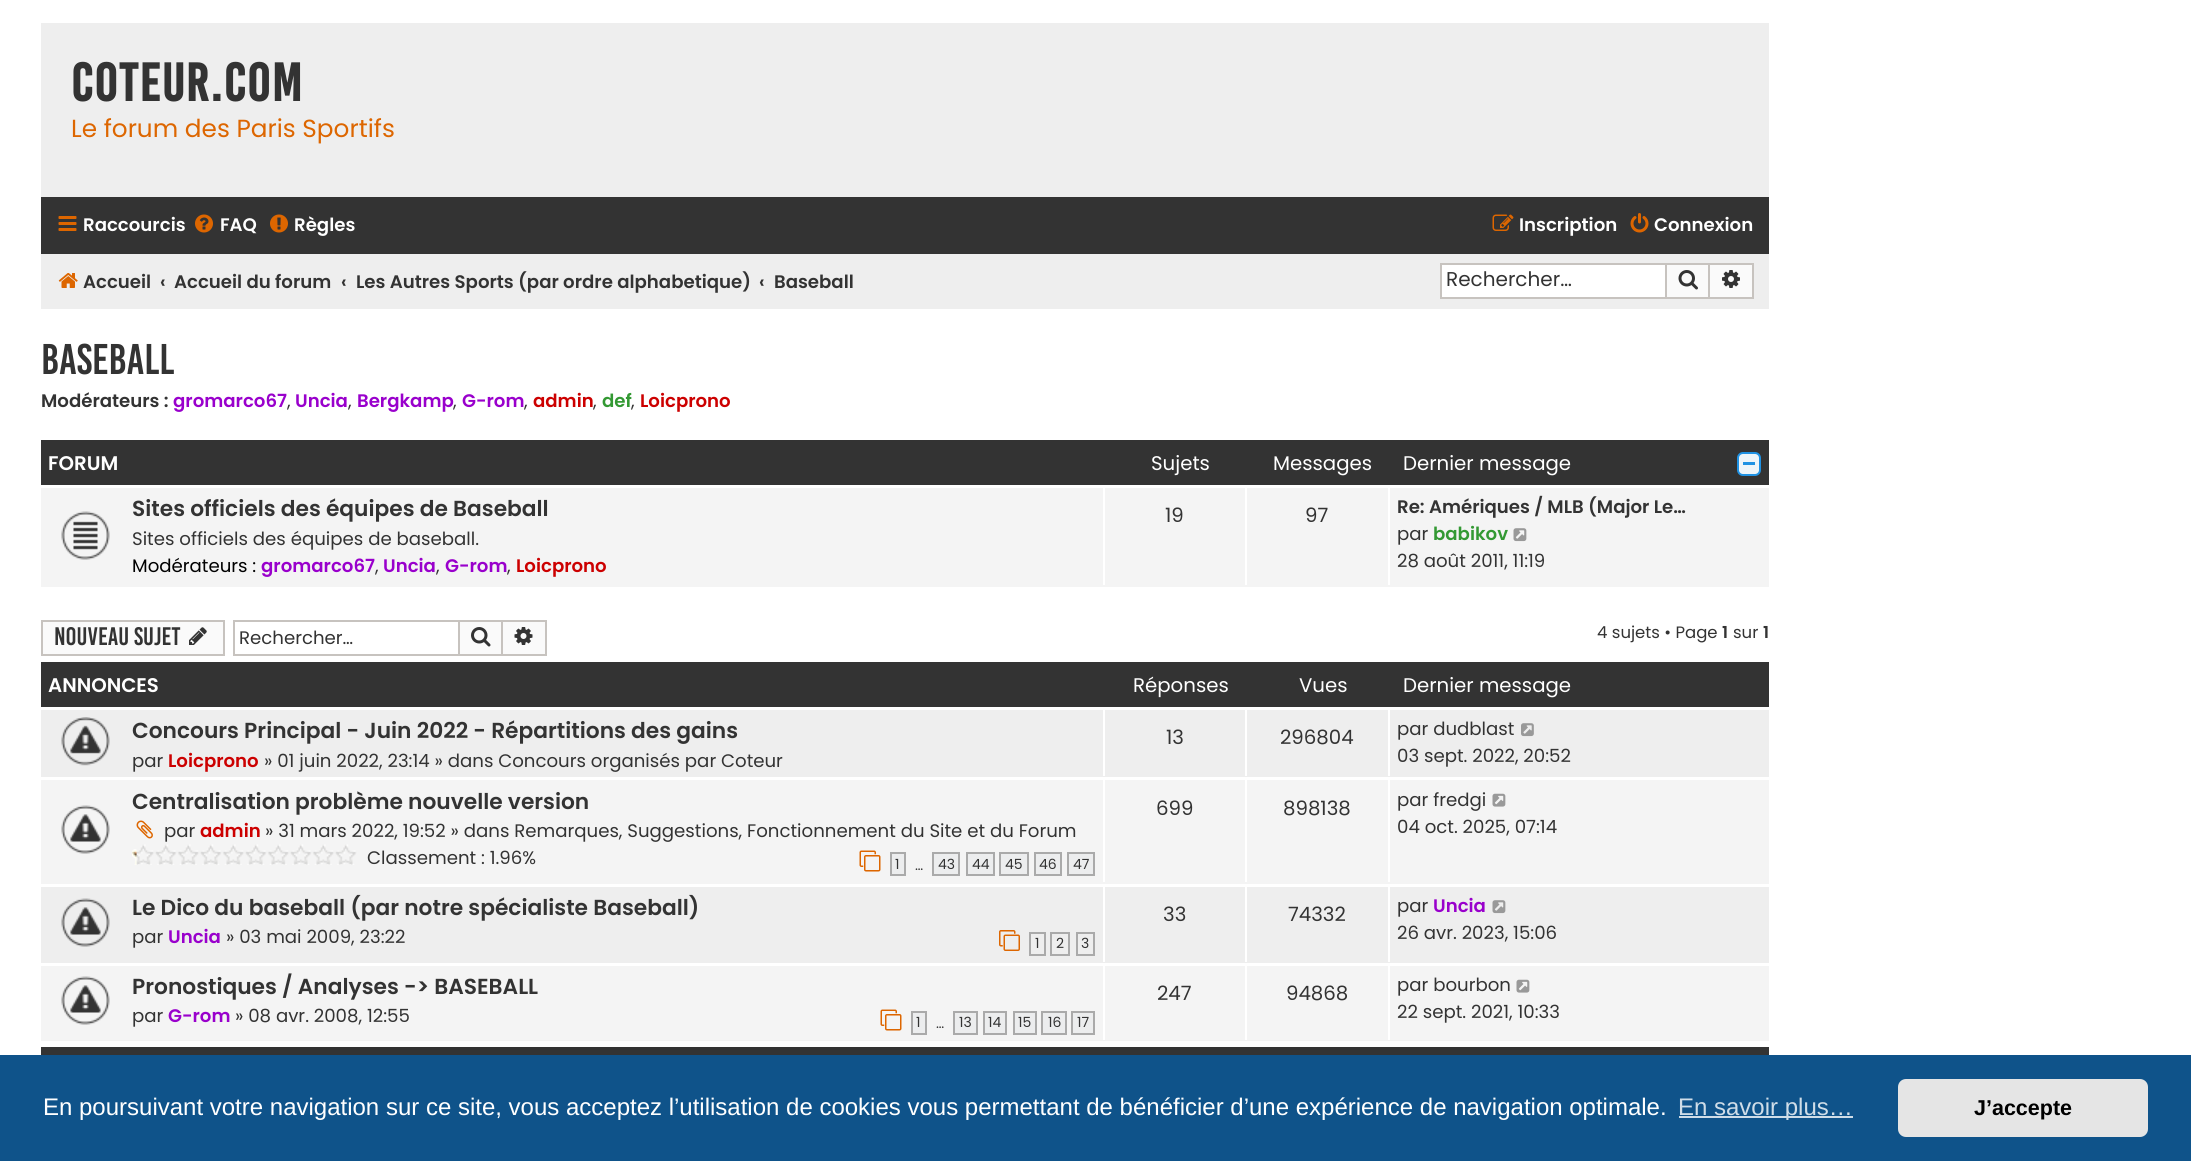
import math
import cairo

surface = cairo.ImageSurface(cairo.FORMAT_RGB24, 2191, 1161)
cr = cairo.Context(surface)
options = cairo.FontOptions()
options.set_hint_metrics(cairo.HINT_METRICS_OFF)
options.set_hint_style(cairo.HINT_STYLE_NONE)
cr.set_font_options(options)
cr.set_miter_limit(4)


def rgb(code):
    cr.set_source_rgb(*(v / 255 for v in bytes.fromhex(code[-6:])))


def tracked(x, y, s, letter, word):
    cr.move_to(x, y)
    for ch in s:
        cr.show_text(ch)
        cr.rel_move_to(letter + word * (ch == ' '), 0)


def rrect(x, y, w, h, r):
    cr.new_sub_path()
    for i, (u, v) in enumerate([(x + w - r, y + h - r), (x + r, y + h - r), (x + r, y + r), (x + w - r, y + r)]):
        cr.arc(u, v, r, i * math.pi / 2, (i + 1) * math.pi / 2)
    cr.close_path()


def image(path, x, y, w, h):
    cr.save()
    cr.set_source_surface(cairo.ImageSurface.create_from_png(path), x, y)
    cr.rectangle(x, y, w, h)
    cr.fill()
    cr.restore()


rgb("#ffffff")
cr.paint()
rgb("#eeeeee")
cr.rectangle(41, 23, 1728, 174)
cr.fill()
rgb("#333333")
cr.rectangle(41, 197, 1728, 57)
cr.fill()
image("img/1.png", 58, 216, 19, 15)
image("img/2.png", 195, 214, 18, 19)
image("img/3.png", 270, 214, 18, 19)
image("img/4.png", 1492, 214, 22, 17)
image("img/5.png", 1630, 213, 19, 20)
rgb("#eeeeee")
cr.rectangle(41, 254, 1728, 55)
cr.fill()
image("img/6.png", 58, 273, 20, 15)
for x, y, w, h, color in [
    (1442, 265, 223, 32, "#ffffff"),
    (1440, 263, 225, 2, "#c7c3bf"),
    (1440, 297, 225, 2, "#c7c3bf"),
    (1440, 263, 2, 36, "#c7c3bf"),
]:
    rgb(color)
    cr.rectangle(x, y, w, h)
    cr.fill()
rgb("#fafafa")
cr.rectangle(1666, 264, 43, 34)
cr.fill_preserve()
rgb("#c7c3bf")
cr.stroke()
image("img/7.png", 1678, 270, 20, 20)
for x, y, w, h, color in [
    (1710, 265, 42, 32, "#fafafa"),
    (1710, 263, 44, 2, "#c7c3bf"),
    (1752, 263, 2, 36, "#c7c3bf"),
    (1710, 297, 44, 2, "#c7c3bf"),
]:
    rgb(color)
    cr.rectangle(x, y, w, h)
    cr.fill()
image("img/8.png", 1722, 270, 18, 18)
rgb("#333333")
cr.rectangle(41, 440, 1728, 45)
cr.fill()
rgb("#eef5f9")
rrect(1738, 453, 22, 22, 5)
cr.fill_preserve()
rgb("#2092e3")
cr.stroke()
cr.rectangle(1743, 462, 12, 3)
cr.fill()
rgb("#f4f4f4")
cr.rectangle(41, 488, 1728, 99)
cr.fill()
image("img/9.png", 61, 511, 49, 49)
for x, y, w, h, color in [
    (1103, 488, 2, 97, "#ffffff"),
    (1245, 488, 2, 97, "#ffffff"),
    (1388, 488, 2, 97, "#ffffff"),
]:
    rgb(color)
    cr.rectangle(x, y, w, h)
    cr.fill()
image("img/10.png", 1513, 528, 14, 14)
rgb("#fafafa")
cr.rectangle(42, 621, 182, 34)
cr.fill_preserve()
rgb("#c7c3bf")
cr.stroke()
image("img/11.png", 189, 627, 18, 18)
for x, y, w, h, color in [
    (233, 620, 225, 2, "#c7c3bf"),
    (233, 654, 225, 2, "#c7c3bf"),
    (233, 620, 2, 36, "#c7c3bf"),
]:
    rgb(color)
    cr.rectangle(x, y, w, h)
    cr.fill()
rgb("#fafafa")
cr.rectangle(459, 621, 43, 34)
cr.fill_preserve()
rgb("#c7c3bf")
cr.stroke()
image("img/12.png", 471, 627, 20, 20)
for x, y, w, h, color in [
    (503, 622, 42, 32, "#fafafa"),
    (503, 620, 43, 2, "#c7c3bf"),
    (545, 620, 2, 36, "#c7c3bf"),
    (503, 654, 43, 2, "#c7c3bf"),
]:
    rgb(color)
    cr.rectangle(x, y, w, h)
    cr.fill()
image("img/13.png", 514, 627, 19, 18)
rgb("#333333")
cr.rectangle(41, 662, 1728, 45)
cr.fill()
rgb("#eeeeee")
cr.rectangle(41, 710, 1728, 67)
cr.fill()
image("img/14.png", 61, 717, 49, 49)
for x, y, w, h, color in [
    (1103, 710, 2, 66, "#ffffff"),
    (1245, 710, 2, 66, "#ffffff"),
    (1388, 710, 2, 66, "#ffffff"),
]:
    rgb(color)
    cr.rectangle(x, y, w, h)
    cr.fill()
image("img/15.png", 1521, 723, 13, 14)
rgb("#f4f4f4")
cr.rectangle(41, 780, 1728, 104)
cr.fill()
image("img/16.png", 61, 805, 49, 49)
image("img/17.png", 136, 820, 17, 19)
image("img/18.png", 134, 844, 223, 21)
image("img/19.png", 132, 849, 5, 16)
image("img/20.png", 859, 850, 22, 22)
rgb("#ecedee")
cr.rectangle(891, 853, 14, 22)
cr.fill_preserve()
rgb("#aaaaaa")
cr.stroke()
rgb("#ecedee")
cr.rectangle(933, 853, 26, 22)
cr.fill_preserve()
rgb("#aaaaaa")
cr.stroke()
rgb("#ecedee")
cr.rectangle(967, 853, 27, 22)
cr.fill_preserve()
rgb("#aaaaaa")
cr.stroke()
rgb("#ecedee")
cr.rectangle(1000, 853, 28, 22)
cr.fill_preserve()
rgb("#aaaaaa")
cr.stroke()
rgb("#ecedee")
cr.rectangle(1035, 853, 26, 22)
cr.fill_preserve()
rgb("#aaaaaa")
cr.stroke()
rgb("#ecedee")
cr.rectangle(1068, 853, 26, 22)
cr.fill_preserve()
rgb("#aaaaaa")
cr.stroke()
for x, y, w, h, color in [
    (1103, 780, 2, 102, "#ffffff"),
    (1245, 780, 2, 102, "#ffffff"),
    (1388, 780, 2, 102, "#ffffff"),
]:
    rgb(color)
    cr.rectangle(x, y, w, h)
    cr.fill()
image("img/21.png", 1492, 793, 14, 14)
rgb("#eeeeee")
cr.rectangle(41, 887, 1728, 76)
cr.fill()
image("img/22.png", 61, 898, 49, 49)
image("img/23.png", 999, 930, 21, 21)
cr.rectangle(1030, 933, 15, 22)
rgb("#aaaaaa")
cr.stroke()
cr.rectangle(1051, 933, 18, 22)
cr.stroke()
cr.rectangle(1077, 933, 17, 22)
cr.stroke()
for x, y, w, h, color in [
    (1103, 887, 2, 75, "#ffffff"),
    (1245, 887, 2, 75, "#ffffff"),
    (1388, 887, 2, 75, "#ffffff"),
]:
    rgb(color)
    cr.rectangle(x, y, w, h)
    cr.fill()
image("img/24.png", 1492, 900, 14, 14)
rgb("#f4f4f4")
cr.rectangle(41, 966, 1728, 75)
cr.fill()
image("img/16.png", 61, 976, 49, 49)
image("img/20.png", 880, 1009, 22, 22)
rgb("#ecedee")
cr.rectangle(912, 1012, 14, 22)
cr.fill_preserve()
rgb("#aaaaaa")
cr.stroke()
rgb("#ecedee")
cr.rectangle(954, 1012, 23, 22)
cr.fill_preserve()
rgb("#aaaaaa")
cr.stroke()
rgb("#ecedee")
cr.rectangle(984, 1012, 22, 22)
cr.fill_preserve()
rgb("#aaaaaa")
cr.stroke()
rgb("#ecedee")
cr.rectangle(1014, 1012, 22, 22)
cr.fill_preserve()
rgb("#aaaaaa")
cr.stroke()
rgb("#ecedee")
cr.rectangle(1042, 1012, 24, 22)
cr.fill_preserve()
rgb("#aaaaaa")
cr.stroke()
rgb("#ecedee")
cr.rectangle(1072, 1012, 22, 22)
cr.fill_preserve()
rgb("#aaaaaa")
cr.stroke()
for x, y, w, h, color in [
    (1103, 966, 2, 74, "#ffffff"),
    (1245, 966, 2, 74, "#ffffff"),
    (1388, 966, 2, 74, "#ffffff"),
]:
    rgb(color)
    cr.rectangle(x, y, w, h)
    cr.fill()
image("img/21.png", 1516, 979, 14, 14)
for x, y, w, h, color in [
    (41, 1047, 1728, 8, "#333333"),
    (0, 1055, 2191, 106, "#0f538a"),
    (1679, 1116, 174, 2, "#cfdde8"),
]:
    rgb(color)
    cr.rectangle(x, y, w, h)
    cr.fill()
rgb("#e5e5e5")
rrect(1898, 1079, 250, 58, 8)
cr.fill()
cr.select_font_face("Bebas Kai", cairo.FONT_SLANT_NORMAL, cairo.FONT_WEIGHT_BOLD)
cr.set_font_size(41.25)
rgb("#333333")
tracked(71, 101, "Coteur.com", 1.5, 0)
cr.select_font_face("Poppins")
cr.set_font_size(24.75)
rgb("#dd6600")
cr.move_to(71, 137)
cr.show_text("Le forum des Paris Sportifs")
cr.select_font_face("Poppins SemiBold")
cr.set_font_size(18.15)
rgb("#ffffff")
for x, y, s in [
    (83, 231, "Raccourcis"),
    (220, 231, "FAQ"),
    (294, 231, "Règles"),
    (1519, 231, "Inscription"),
    (1654, 231, "Connexion"),
]:
    cr.move_to(x, y)
    cr.show_text(s)
rgb("#333333")
for x, y, s in [
    (83, 288, "Accueil"),
    (160, 288, "‹"),
    (174, 288, "Accueil du forum"),
    (341, 288, "‹"),
    (356, 288, "Les Autres Sports (par ordre alphabetique)"),
    (759, 288, "‹"),
    (774, 288, "Baseball"),
]:
    cr.move_to(x, y)
    cr.show_text(s)
cr.select_font_face("Poppins")
cr.set_font_size(20)
cr.move_to(1446, 286)
cr.show_text("Rechercher…")
cr.select_font_face("Bebas Kai")
cr.set_font_size(33)
cr.move_to(41, 374)
cr.show_text("Baseball")
cr.select_font_face("Poppins SemiBold")
cr.set_font_size(18.15)
cr.move_to(41, 407)
cr.show_text("Modérateurs :")
rgb("#9900cc")
cr.move_to(173, 407)
cr.show_text("gromarco67")
cr.select_font_face("Poppins")
rgb("#333333")
cr.move_to(287, 407)
cr.show_text(",")
cr.select_font_face("Poppins SemiBold")
rgb("#9900cc")
cr.move_to(295, 407)
cr.show_text("Uncia")
cr.select_font_face("Poppins")
rgb("#333333")
cr.move_to(348, 407)
cr.show_text(",")
cr.select_font_face("Poppins SemiBold")
rgb("#9900cc")
cr.move_to(357, 407)
cr.show_text("Bergkamp")
cr.select_font_face("Poppins")
rgb("#333333")
cr.move_to(453, 407)
cr.show_text(",")
cr.select_font_face("Poppins SemiBold")
rgb("#9900cc")
cr.move_to(462, 407)
cr.show_text("G-rom")
cr.select_font_face("Poppins")
rgb("#333333")
cr.move_to(524, 407)
cr.show_text(",")
cr.select_font_face("Poppins SemiBold")
rgb("#cc0000")
cr.move_to(533, 407)
cr.show_text("admin")
cr.select_font_face("Poppins")
rgb("#333333")
cr.move_to(593, 407)
cr.show_text(",")
cr.select_font_face("Poppins SemiBold")
rgb("#339933")
cr.move_to(602, 407)
cr.show_text("def")
cr.select_font_face("Poppins")
rgb("#333333")
cr.move_to(631, 407)
cr.show_text(",")
cr.select_font_face("Poppins SemiBold")
rgb("#cc0000")
cr.move_to(640, 407)
cr.show_text("Loicprono")
cr.set_font_size(19.75)
rgb("#ffffff")
cr.move_to(48, 470)
cr.show_text("FORUM")
cr.select_font_face("Poppins")
for x, y, s in [
    (1151, 470, "Sujets"),
    (1273, 470, "Messages"),
    (1403, 470, "Dernier message"),
]:
    cr.move_to(x, y)
    cr.show_text(s)
cr.select_font_face("Poppins SemiBold")
cr.set_font_size(21.75)
rgb("#333333")
cr.move_to(132, 516)
cr.show_text("Sites officiels des équipes de Baseball")
cr.select_font_face("Poppins")
cr.set_font_size(18.15)
cr.move_to(132, 545)
cr.show_text("Sites officiels des équipes de baseball.")
rgb("#000000")
cr.move_to(132, 572)
cr.show_text("Modérateurs :")
cr.select_font_face("Poppins SemiBold")
rgb("#9900cc")
cr.move_to(261, 572)
cr.show_text("gromarco67")
cr.select_font_face("Poppins")
rgb("#333333")
cr.move_to(375, 572)
cr.show_text(",")
cr.select_font_face("Poppins SemiBold")
rgb("#9900cc")
cr.move_to(383, 572)
cr.show_text("Uncia")
cr.select_font_face("Poppins")
rgb("#333333")
cr.move_to(436, 572)
cr.show_text(",")
cr.select_font_face("Poppins SemiBold")
rgb("#9900cc")
cr.move_to(445, 572)
cr.show_text("G-rom")
cr.select_font_face("Poppins")
rgb("#333333")
cr.move_to(507, 572)
cr.show_text(",")
cr.select_font_face("Poppins SemiBold")
rgb("#cc0000")
cr.move_to(516, 572)
cr.show_text("Loicprono")
cr.select_font_face("Poppins")
cr.set_font_size(19.75)
rgb("#333333")
cr.move_to(1165, 522)
cr.show_text("19")
cr.move_to(1305, 522)
cr.show_text("97")
cr.select_font_face("Poppins SemiBold")
cr.set_font_size(18.15)
cr.move_to(1397, 513)
cr.show_text("Re: Amériques / MLB (Major Le…")
cr.select_font_face("Poppins")
cr.move_to(1397, 540)
cr.show_text("par")
cr.select_font_face("Poppins SemiBold")
rgb("#339933")
cr.move_to(1433, 540)
cr.show_text("babikov")
cr.select_font_face("Poppins")
rgb("#333333")
cr.move_to(1397, 567)
cr.show_text("28 août 2011, 11:19")
cr.select_font_face("Bebas Kai")
cr.set_font_size(19.5)
cr.move_to(54, 645)
cr.show_text("Nouveau sujet")
cr.select_font_face("Poppins")
cr.set_font_size(18.15)
cr.move_to(239, 644)
cr.show_text("Rechercher…")
cr.set_font_size(16.5)
cr.move_to(1597, 638)
cr.show_text("4 sujets • Page")
cr.select_font_face("Poppins SemiBold")
cr.move_to(1722, 638)
cr.show_text("1")
cr.select_font_face("Poppins")
cr.move_to(1733, 638)
cr.show_text("sur")
cr.select_font_face("Poppins SemiBold")
cr.move_to(1763, 638)
cr.show_text("1")
cr.set_font_size(19.75)
rgb("#ffffff")
cr.move_to(48, 692)
cr.show_text("ANNONCES")
cr.select_font_face("Poppins")
for x, y, s in [
    (1133, 692, "Réponses"),
    (1299, 692, "Vues"),
    (1403, 692, "Dernier message"),
]:
    cr.move_to(x, y)
    cr.show_text(s)
cr.select_font_face("Poppins SemiBold")
cr.set_font_size(21.75)
rgb("#333333")
cr.move_to(132, 738)
cr.show_text("Concours Principal - Juin 2022 - Répartitions des gains")
cr.select_font_face("Poppins")
cr.set_font_size(18.15)
cr.move_to(132, 767)
cr.show_text("par")
cr.select_font_face("Poppins SemiBold")
rgb("#cc0000")
cr.move_to(168, 767)
cr.show_text("Loicprono")
cr.select_font_face("Poppins")
rgb("#333333")
cr.move_to(264, 767)
cr.show_text("» 01 juin 2022, 23:14 » dans Concours organisés par Coteur")
cr.set_font_size(19.75)
cr.move_to(1166, 744)
cr.show_text("13")
cr.move_to(1280, 744)
cr.show_text("296804")
cr.set_font_size(18.15)
cr.move_to(1397, 735)
cr.show_text("par dudblast")
cr.move_to(1397, 762)
cr.show_text("03 sept. 2022, 20:52")
cr.select_font_face("Poppins SemiBold")
cr.set_font_size(21.75)
cr.move_to(132, 809)
cr.show_text("Centralisation problème nouvelle version")
cr.select_font_face("Poppins")
cr.set_font_size(18.15)
cr.move_to(164, 837)
cr.show_text("par")
cr.select_font_face("Poppins SemiBold")
rgb("#cc0000")
cr.move_to(200, 837)
cr.show_text("admin")
cr.select_font_face("Poppins")
rgb("#333333")
cr.move_to(265, 837)
cr.show_text("» 31 mars 2022, 19:52 » dans Remarques, Suggestions, Fonctionnement du Site et du Forum")
cr.move_to(367, 864)
cr.show_text("Classement : 1.96%")
cr.set_font_size(14)
for x, y, s in [
    (895, 869, "1"),
    (938, 869, "43"),
    (972, 869, "44"),
    (1005, 869, "45"),
    (1039, 869, "46"),
    (1073, 869, "47"),
    (915, 870, "…"),
]:
    cr.move_to(x, y)
    cr.show_text(s)
cr.set_font_size(19.75)
cr.move_to(1156, 815)
cr.show_text("699")
cr.move_to(1283, 815)
cr.show_text("898138")
cr.set_font_size(18.15)
cr.move_to(1397, 806)
cr.show_text("par fredgi")
cr.move_to(1397, 833)
cr.show_text("04 oct. 2025, 07:14")
cr.select_font_face("Poppins SemiBold")
cr.set_font_size(21.75)
cr.move_to(132, 915)
cr.show_text("Le Dico du baseball (par notre spécialiste Baseball)")
cr.select_font_face("Poppins")
cr.set_font_size(18.15)
cr.move_to(132, 943)
cr.show_text("par")
cr.select_font_face("Poppins SemiBold")
rgb("#9900cc")
cr.move_to(168, 943)
cr.show_text("Uncia")
cr.select_font_face("Poppins")
rgb("#333333")
cr.move_to(226, 943)
cr.show_text("» 03 mai 2009, 23:22")
cr.set_font_size(14)
for x, y, s in [
    (1035, 948, "1"),
    (1056, 948, "2"),
    (1081, 948, "3"),
]:
    cr.move_to(x, y)
    cr.show_text(s)
cr.set_font_size(19.75)
cr.move_to(1163, 921)
cr.show_text("33")
cr.move_to(1288, 921)
cr.show_text("74332")
cr.set_font_size(18.15)
cr.move_to(1397, 912)
cr.show_text("par")
cr.select_font_face("Poppins SemiBold")
rgb("#9900cc")
cr.move_to(1433, 912)
cr.show_text("Uncia")
cr.select_font_face("Poppins")
rgb("#333333")
cr.move_to(1397, 939)
cr.show_text("26 avr. 2023, 15:06")
cr.select_font_face("Poppins SemiBold")
cr.set_font_size(21.75)
cr.move_to(132, 994)
cr.show_text("Pronostiques / Analyses -> BASEBALL")
cr.select_font_face("Poppins")
cr.set_font_size(18.15)
cr.move_to(132, 1022)
cr.show_text("par")
cr.select_font_face("Poppins SemiBold")
rgb("#9900cc")
cr.move_to(168, 1022)
cr.show_text("G-rom")
cr.select_font_face("Poppins")
rgb("#333333")
cr.move_to(235, 1022)
cr.show_text("» 08 avr. 2008, 12:55")
cr.set_font_size(14)
for x, y, s in [
    (916, 1027, "1"),
    (959, 1027, "13"),
    (988, 1027, "14"),
    (1018, 1027, "15"),
    (1048, 1027, "16"),
    (1077, 1027, "17"),
    (936, 1028, "…"),
]:
    cr.move_to(x, y)
    cr.show_text(s)
cr.set_font_size(19.75)
cr.move_to(1157, 1000)
cr.show_text("247")
cr.move_to(1286, 1000)
cr.show_text("94868")
cr.set_font_size(18.15)
cr.move_to(1397, 991)
cr.show_text("par bourbon")
cr.move_to(1397, 1018)
cr.show_text("22 sept. 2021, 10:33")
cr.select_font_face("Liberation Sans")
cr.set_font_size(24)
rgb("#ffffff")
cr.move_to(43, 1115)
cr.show_text("En poursuivant votre navigation sur ce site, vous acceptez l’utilisation de cookies vous permettant de bénéficier d’une expérience de navigation optimale.")
rgb("#cfdde8")
cr.move_to(1678, 1115)
cr.show_text("En savoir plus…")
cr.select_font_face("Liberation Sans", cairo.FONT_SLANT_NORMAL, cairo.FONT_WEIGHT_BOLD)
cr.set_font_size(21.5)
rgb("#000000")
cr.move_to(1974, 1115)
cr.show_text("J’accepte")
surface.write_to_png("page.png")
